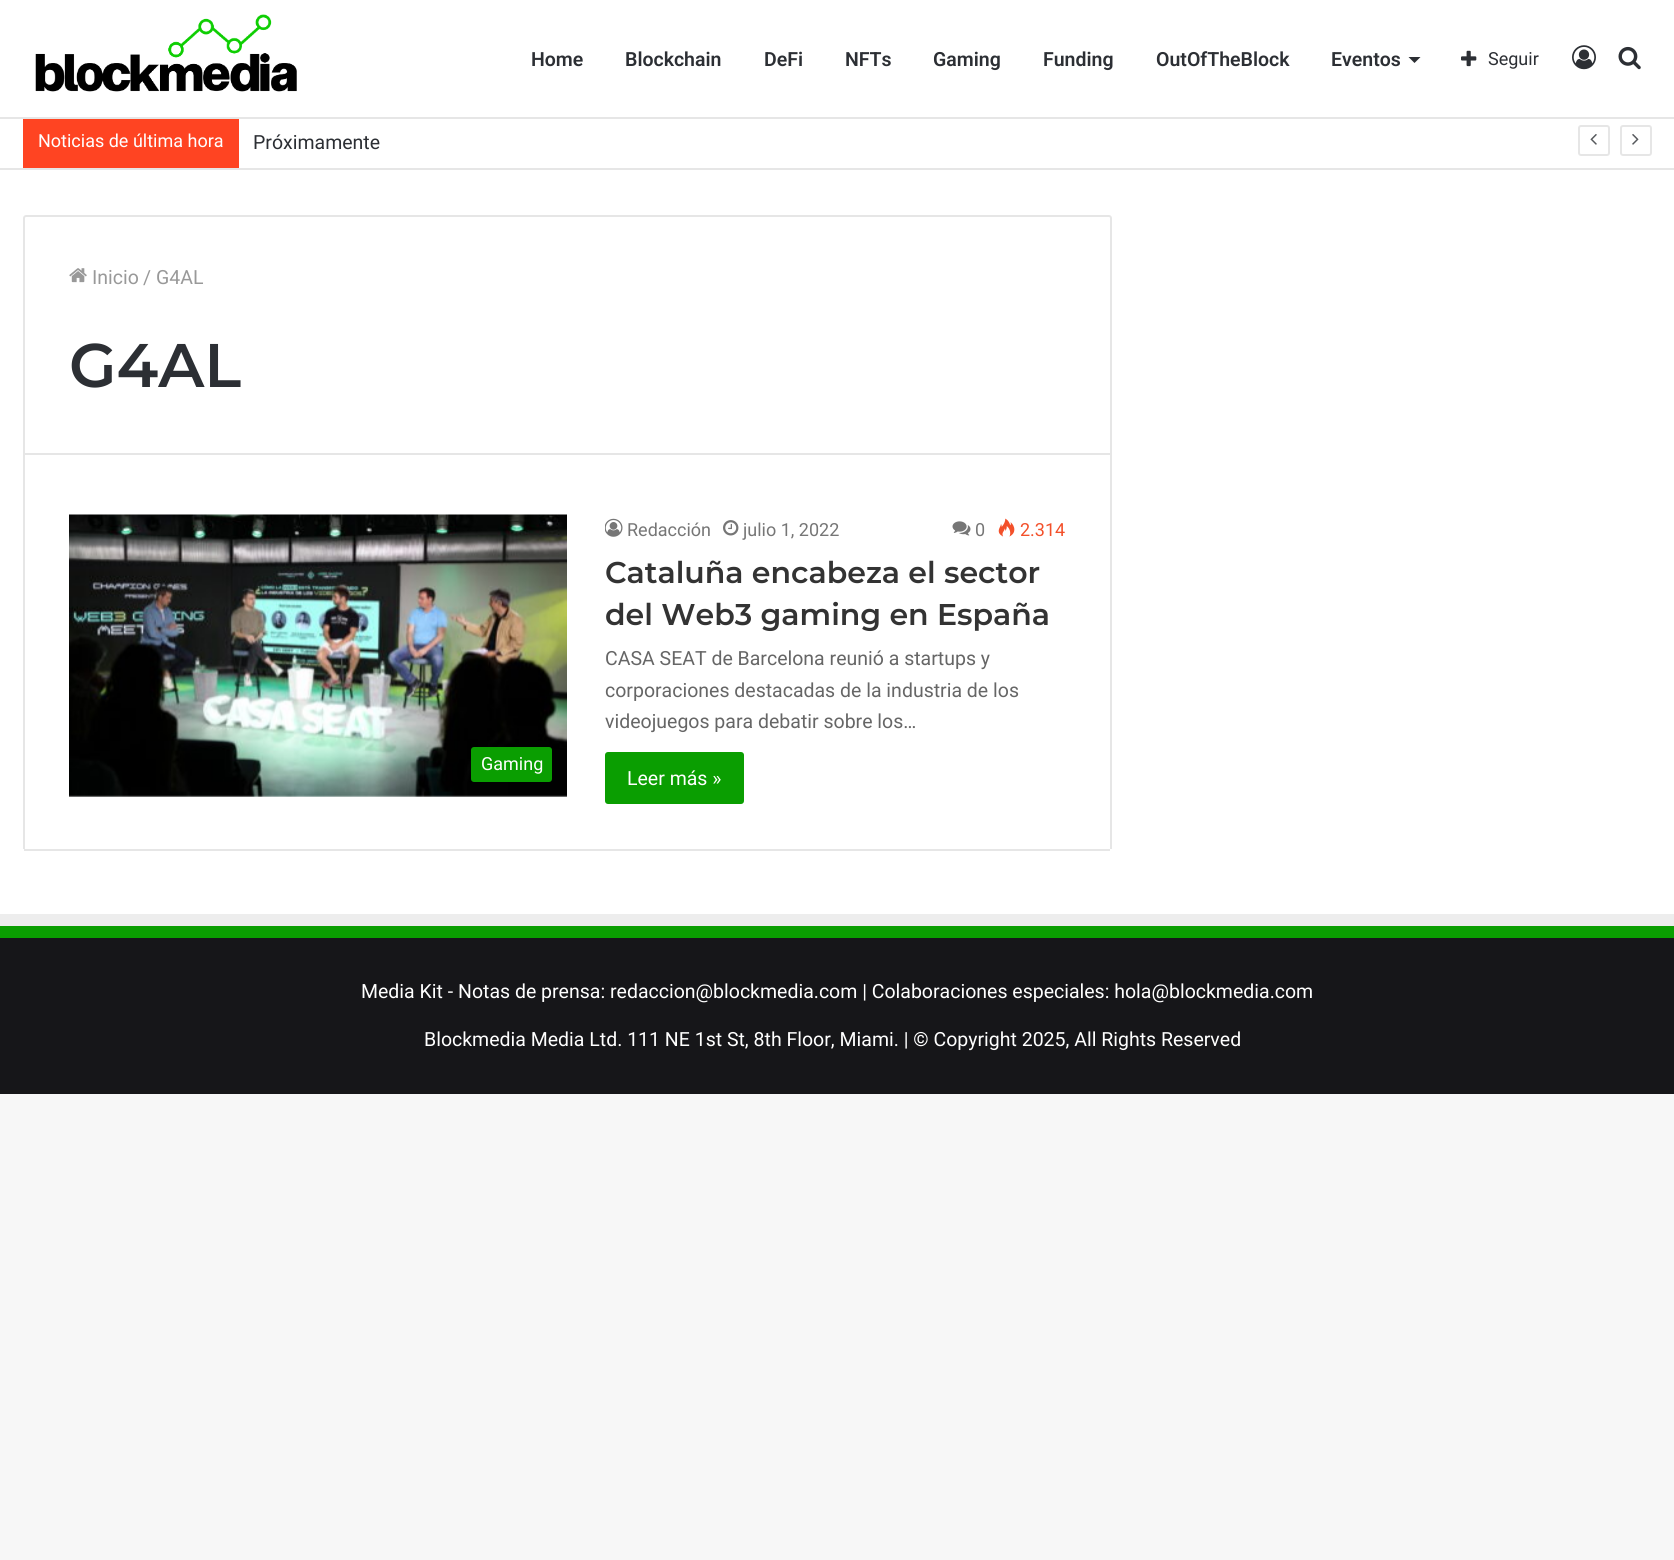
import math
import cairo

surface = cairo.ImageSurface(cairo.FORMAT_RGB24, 1674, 1560)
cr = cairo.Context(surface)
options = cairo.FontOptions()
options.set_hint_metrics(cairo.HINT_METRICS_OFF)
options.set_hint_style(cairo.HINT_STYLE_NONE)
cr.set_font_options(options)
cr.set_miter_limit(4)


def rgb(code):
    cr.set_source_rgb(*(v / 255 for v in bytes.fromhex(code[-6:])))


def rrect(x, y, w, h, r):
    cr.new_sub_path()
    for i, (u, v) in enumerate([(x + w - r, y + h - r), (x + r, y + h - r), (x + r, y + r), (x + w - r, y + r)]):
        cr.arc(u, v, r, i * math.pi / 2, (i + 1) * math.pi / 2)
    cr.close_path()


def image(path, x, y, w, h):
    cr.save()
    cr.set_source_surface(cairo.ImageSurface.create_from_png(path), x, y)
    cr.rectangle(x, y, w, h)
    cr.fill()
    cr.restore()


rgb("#f7f7f7")
cr.paint()
rgb("#ffffff")
cr.rectangle(0, 0, 1674, 914)
cr.fill()
rgb("#e6e6e6")
cr.rectangle(0, 117, 1674, 2)
cr.fill()
image("img/1.png", 35, 14, 262, 78)
rgb("#2c2f34")
cr.new_path()
cr.move_to(1408.5, 57)
cr.line_to(1420.5, 57)
cr.line_to(1414.5, 63)
cr.close_path()
cr.fill()
image("img/2.png", 1461, 50, 16, 17)
image("img/3.png", 1572, 45, 24, 25)
image("img/4.png", 1618, 46, 23, 24)
rgb("#e6e6e6")
cr.rectangle(0, 168, 1674, 2)
cr.fill()
rgb("#ff4422")
cr.rectangle(23, 119, 216, 49)
cr.fill()
rrect(1579, 126, 30, 29, 2)
rgb("#e6e6e6")
cr.stroke()
image("img/5.png", 1590, 134, 7, 11)
rrect(1621, 126, 30, 29, 2)
cr.stroke()
image("img/6.png", 1632, 134, 7, 11)
cr.new_path()
cr.move_to(26, 216)
cr.line_to(1109, 216)
cr.curve_to(1110, 216, 1111, 217, 1111, 218)
cr.line_to(1111, 454)
cr.line_to(24, 454)
cr.line_to(24, 218)
cr.curve_to(24, 217, 25, 216, 26, 216)
cr.close_path()
cr.stroke()
image("img/7.png", 69, 268, 18, 15)
for x, y, w, h, color in [
    (1110, 455, 2, 394, "#e6e6e6"),
    (24, 849, 1086, 2, "#e6e6e6"),
    (23, 455, 2, 394, "#e6e6e6"),
]:
    rgb(color)
    cr.rectangle(x, y, w, h)
    cr.fill()
image("img/8.png", 69, 514, 498, 283)
rgb("#0a9e01")
rrect(471, 747, 81, 35, 3)
cr.fill()
image("img/9.png", 605, 518, 18, 19)
image("img/10.png", 723, 520, 16, 16)
image("img/11.png", 952, 521, 19, 15)
image("img/12.png", 998, 518, 17, 19)
rrect(605, 752, 139, 52, 3)
cr.fill()
for x, y, w, h, color in [
    (0, 914, 1674, 12, "#ededed"),
    (0, 926, 1674, 12, "#0a9e01"),
    (0, 938, 1674, 156, "#161619"),
]:
    rgb(color)
    cr.rectangle(x, y, w, h)
    cr.fill()
cr.select_font_face("Roboto SemiBold")
cr.set_font_size(19.5)
rgb("#2c2f34")
for x, y, s in [
    (531, 66, "Home"),
    (625, 66, "Blockchain"),
    (764, 66, "DeFi"),
    (845, 66, "NFTs"),
    (933, 66, "Gaming"),
    (1043, 66, "Funding"),
    (1156, 66, "OutOfTheBlock"),
    (1331, 66, "Eventos"),
]:
    cr.move_to(x, y)
    cr.show_text(s)
cr.select_font_face("Roboto")
cr.set_font_size(18)
cr.move_to(1488, 65)
cr.show_text("Seguir")
rgb("#ffffff")
cr.move_to(38, 147)
cr.show_text("Noticias de última hora")
cr.set_font_size(19.5)
rgb("#2c2f34")
cr.move_to(253, 149)
cr.show_text("Próximamente")
rgb("#999999")
for x, y, s in [
    (92, 284, "Inicio"),
    (143, 284, "/"),
    (156, 284, "G4AL"),
]:
    cr.move_to(x, y)
    cr.show_text(s)
cr.select_font_face("Montserrat SemiBold")
cr.set_font_size(61.5)
rgb("#2c2f34")
cr.move_to(69, 387)
cr.show_text("G4AL")
cr.select_font_face("Roboto")
cr.set_font_size(18)
rgb("#ffffff")
cr.move_to(481, 770)
cr.show_text("Gaming")
rgb("#767676")
for x, y, s in [
    (627, 536, "Redacción"),
    (743, 536, "julio 1, 2022"),
    (975, 536, "0"),
]:
    cr.move_to(x, y)
    cr.show_text(s)
rgb("#f3502a")
cr.move_to(1020, 536)
cr.show_text("2.314")
cr.select_font_face("Montserrat SemiBold")
cr.set_font_size(30)
rgb("#333333")
cr.move_to(605, 583)
cr.show_text("Cataluña encabeza el sector")
cr.move_to(605, 625)
cr.show_text("del Web3 gaming en España")
cr.select_font_face("Roboto")
cr.set_font_size(19.5)
rgb("#666666")
for x, y, s in [
    (605, 665, "CASA SEAT de Barcelona reunió a startups y"),
    (605, 697, "corporaciones destacadas de la industria de los"),
    (605, 728, "videojuegos para debatir sobre los…"),
]:
    cr.move_to(x, y)
    cr.show_text(s)
rgb("#ffffff")
for x, y, s in [
    (627, 785, "Leer más »"),
    (361, 998, "Media Kit - Notas de prensa: redaccion@blockmedia.com | Colaboraciones especiales: hola@blockmedia.com"),
    (424, 1046, "Blockmedia Media Ltd. 111 NE 1st St, 8th Floor, Miami. | © Copyright 2025, All Rights Reserved"),
]:
    cr.move_to(x, y)
    cr.show_text(s)
surface.write_to_png("page.png")
